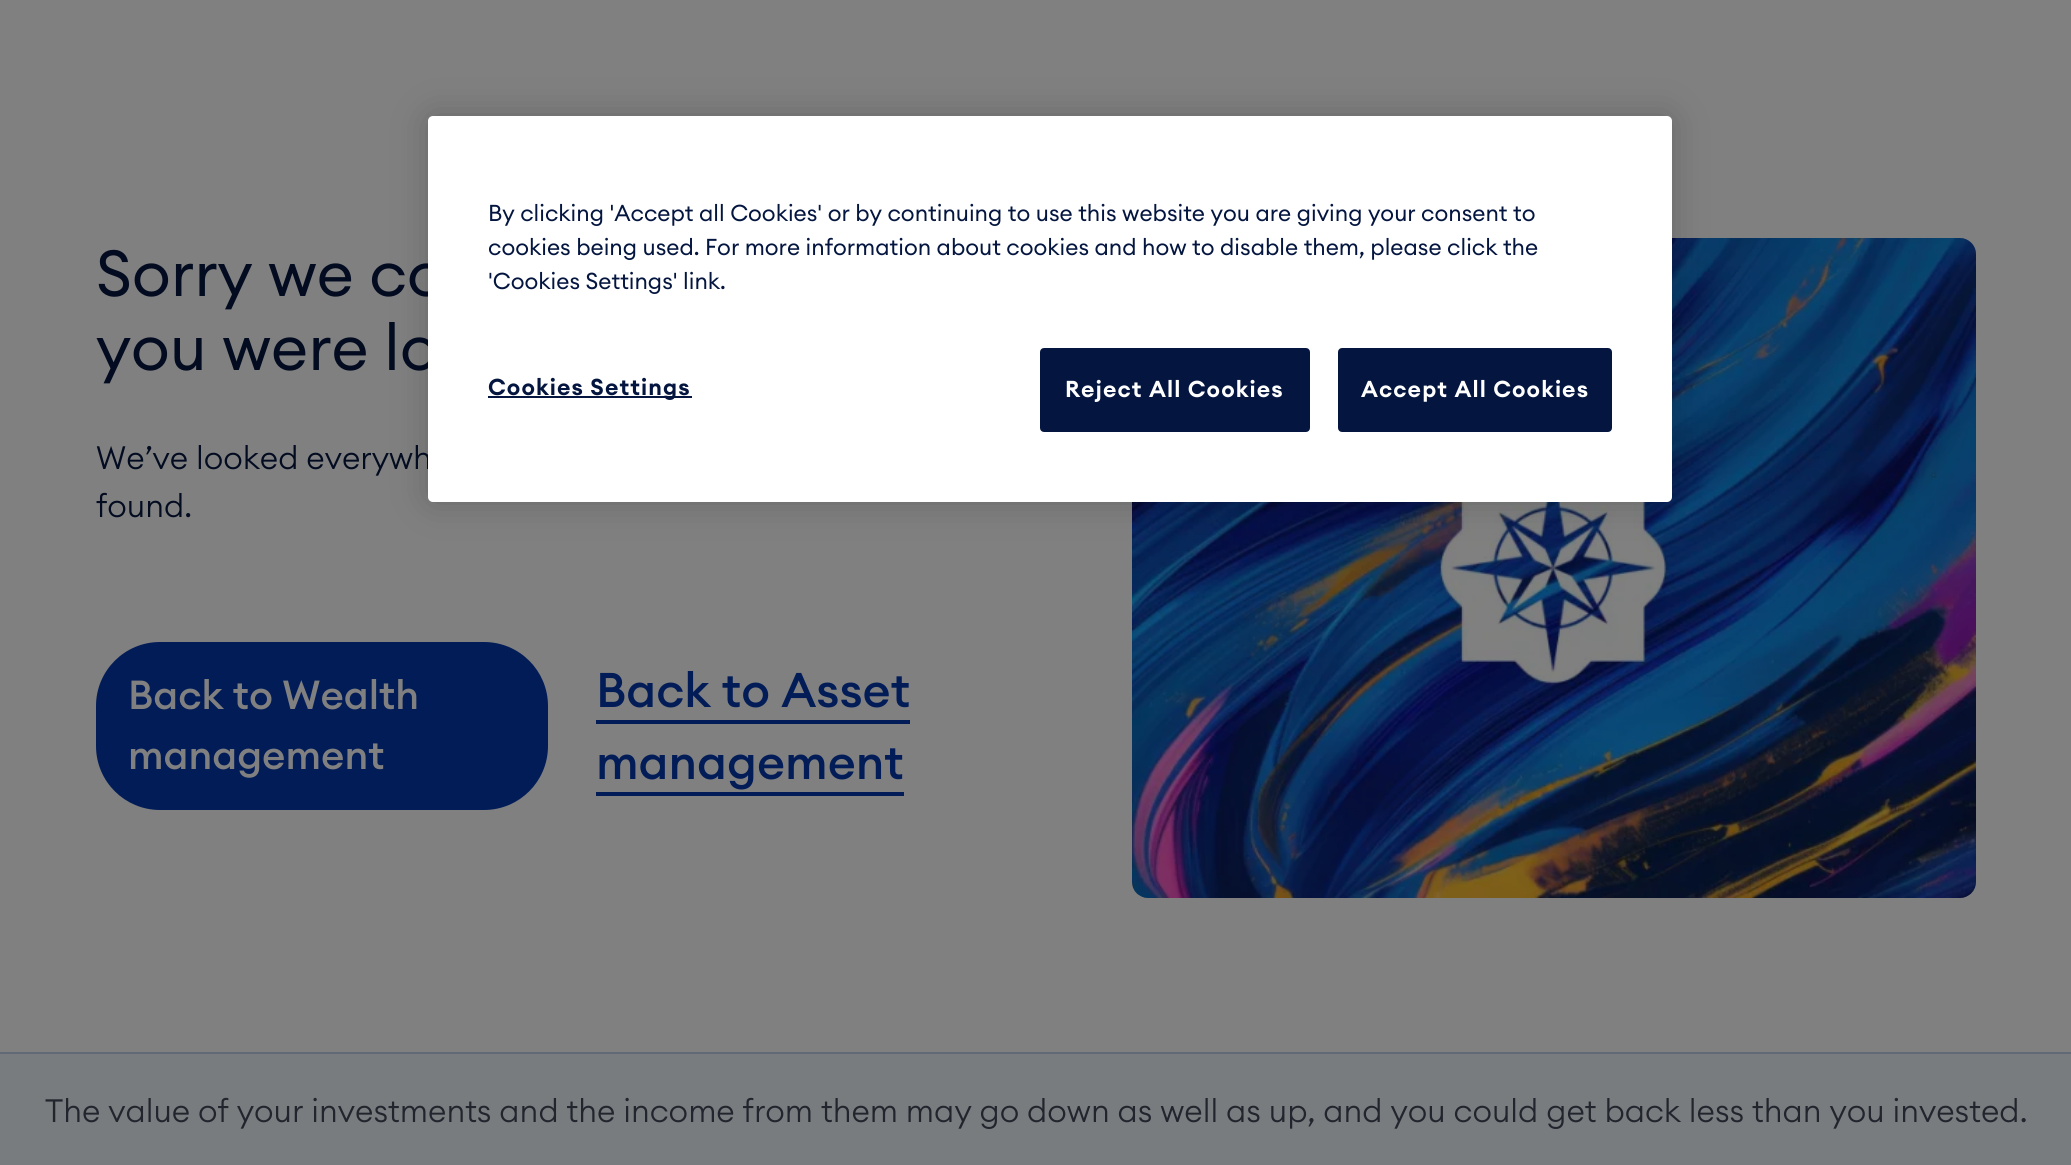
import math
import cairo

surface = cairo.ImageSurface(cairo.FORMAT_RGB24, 2071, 1165)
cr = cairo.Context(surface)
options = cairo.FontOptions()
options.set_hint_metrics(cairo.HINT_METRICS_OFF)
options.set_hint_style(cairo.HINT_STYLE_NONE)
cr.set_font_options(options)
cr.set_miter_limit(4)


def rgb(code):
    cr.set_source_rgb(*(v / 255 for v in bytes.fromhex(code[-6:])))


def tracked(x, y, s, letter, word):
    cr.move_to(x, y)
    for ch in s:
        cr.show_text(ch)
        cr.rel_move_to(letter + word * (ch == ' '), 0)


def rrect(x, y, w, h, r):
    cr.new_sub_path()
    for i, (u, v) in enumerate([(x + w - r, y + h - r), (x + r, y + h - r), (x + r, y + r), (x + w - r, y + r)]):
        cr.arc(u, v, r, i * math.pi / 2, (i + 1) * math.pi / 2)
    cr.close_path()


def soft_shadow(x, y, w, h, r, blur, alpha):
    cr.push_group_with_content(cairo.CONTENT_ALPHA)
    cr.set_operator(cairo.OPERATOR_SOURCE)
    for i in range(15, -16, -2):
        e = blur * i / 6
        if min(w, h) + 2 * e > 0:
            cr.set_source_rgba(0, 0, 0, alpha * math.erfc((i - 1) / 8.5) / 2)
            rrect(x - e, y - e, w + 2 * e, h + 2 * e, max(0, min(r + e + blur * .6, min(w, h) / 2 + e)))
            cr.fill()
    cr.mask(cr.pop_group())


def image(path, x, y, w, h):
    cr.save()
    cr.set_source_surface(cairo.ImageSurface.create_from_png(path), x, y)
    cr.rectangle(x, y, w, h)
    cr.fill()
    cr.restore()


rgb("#808080")
cr.paint()
image("img/1.png", 1132, 238, 844, 660)
rgb("#000000")
soft_shadow(428, 116, 1244, 386, 5, 18, 0.2)
rgb("#021c58")
rrect(96, 642, 452, 168, 64)
cr.fill()
for x, y, w, h, color in [
    (596, 720, 314, 4, "#021c58"),
    (596, 792, 308, 4, "#021c58"),
    (0, 1054, 2071, 111, "#797c7e"),
    (0, 1052, 2071, 2, "#616976"),
]:
    rgb(color)
    cr.rectangle(x, y, w, h)
    cr.fill()
cr.select_font_face("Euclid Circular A")
cr.set_font_size(64)
rgb("#020b20")
cr.move_to(96, 296)
cr.show_text("Sorry we co")
cr.move_to(96, 370)
cr.show_text("you were lo")
cr.select_font_face("Euclid Circular A Light")
cr.set_font_size(32)
cr.move_to(96, 469)
cr.show_text("We’ve looked everywh")
rgb("#ffffff")
rrect(428, 116, 1244, 386, 5)
cr.fill()
rgb("#041640")
rrect(1339, 349, 272, 82, 3)
cr.fill_preserve()
cr.stroke()
cr.select_font_face("Euclid Circular A SemiBold")
cr.set_font_size(22.75)
rgb("#ffffff")
tracked(1361, 397, "Accept All Cookies", 1.1, 0)
rgb("#041640")
rrect(1041, 349, 268, 82, 3)
cr.fill_preserve()
cr.stroke()
rgb("#ffffff")
tracked(1065, 397, "Reject All Cookies", 1.1, 0)
rgb("#041640")
cr.rectangle(488, 396, 204, 2)
cr.fill()
tracked(488, 395, "Cookies Settings", 1.1, 0)
cr.select_font_face("Euclid Circular A")
for x, y, s in [
    (488, 289, "'Cookies Settings' link."),
    (488, 255, "cookies being used. For more information about cookies and how to disable them, please click the"),
    (488, 221, "By clicking 'Accept all Cookies' or by continuing to use this website you are giving your consent to"),
]:
    cr.move_to(x, y)
    cr.show_text(s)
cr.select_font_face("Euclid Circular A Light")
cr.set_font_size(32)
rgb("#020b20")
cr.move_to(96, 517)
cr.show_text("found.")
cr.select_font_face("Euclid Circular A Medium")
cr.set_font_size(40)
rgb("#808080")
cr.move_to(128, 709)
cr.show_text("Back to Wealth")
cr.move_to(128, 769)
cr.show_text("management")
cr.set_font_size(48)
rgb("#021c58")
cr.move_to(596, 707)
cr.show_text("Back to Asset")
cr.move_to(596, 779)
cr.show_text("management")
cr.select_font_face("Euclid Circular A Light")
cr.set_font_size(32)
rgb("#22252e")
cr.move_to(45, 1122)
cr.show_text("The value of your investments and the income from them may go down as well as up, and you could get back less than you invested.")
surface.write_to_png("page.png")
